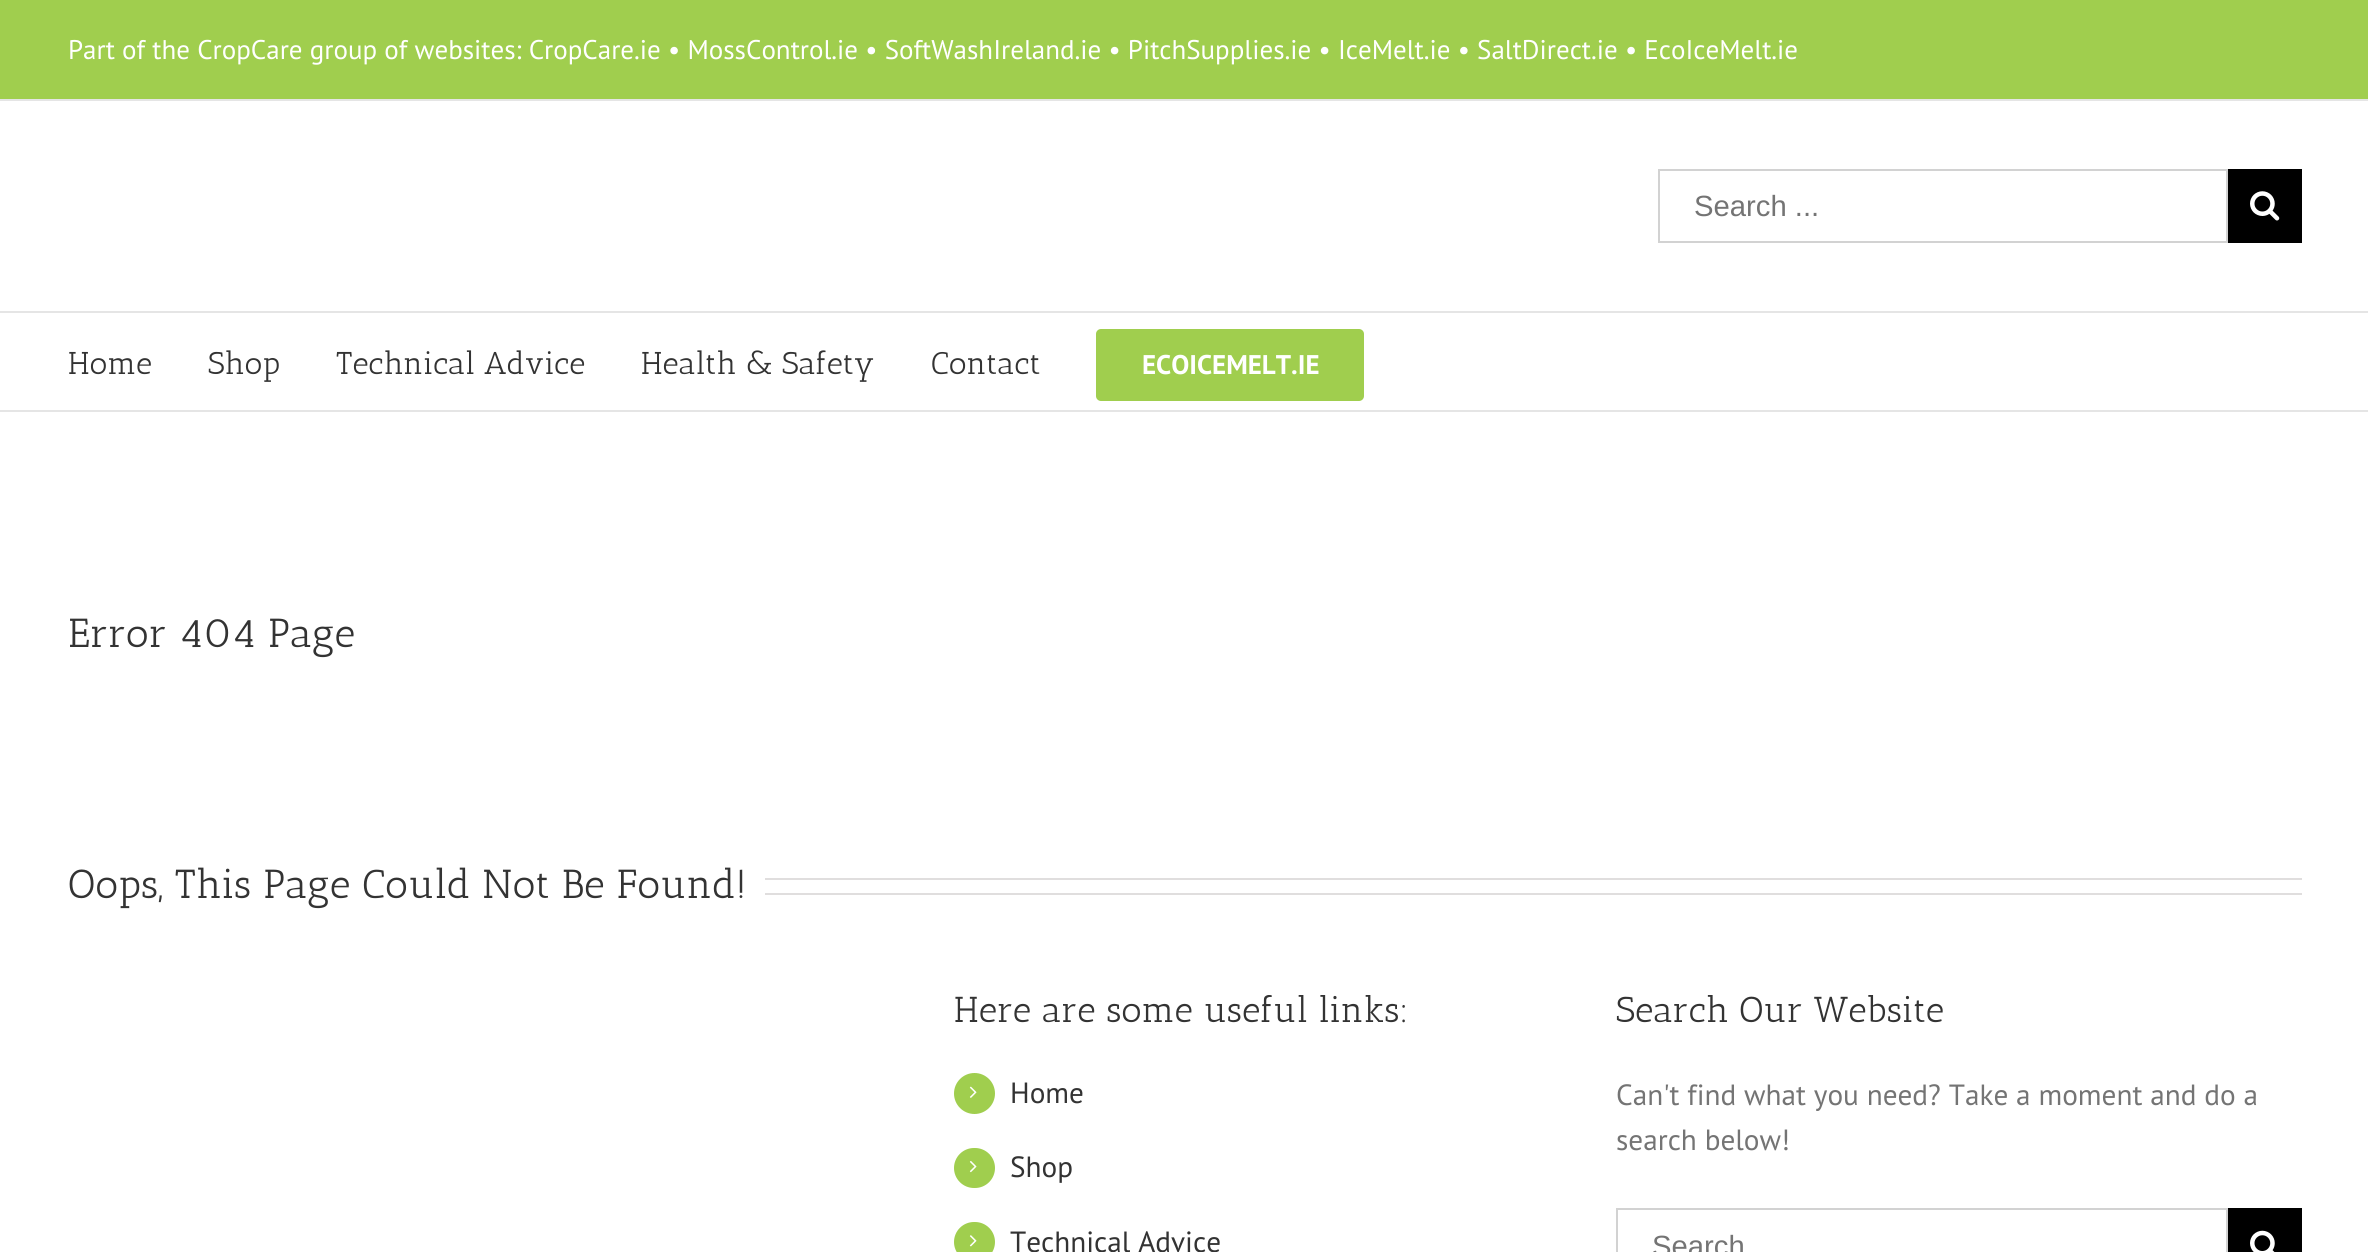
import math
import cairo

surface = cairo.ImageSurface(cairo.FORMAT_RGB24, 2368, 1252)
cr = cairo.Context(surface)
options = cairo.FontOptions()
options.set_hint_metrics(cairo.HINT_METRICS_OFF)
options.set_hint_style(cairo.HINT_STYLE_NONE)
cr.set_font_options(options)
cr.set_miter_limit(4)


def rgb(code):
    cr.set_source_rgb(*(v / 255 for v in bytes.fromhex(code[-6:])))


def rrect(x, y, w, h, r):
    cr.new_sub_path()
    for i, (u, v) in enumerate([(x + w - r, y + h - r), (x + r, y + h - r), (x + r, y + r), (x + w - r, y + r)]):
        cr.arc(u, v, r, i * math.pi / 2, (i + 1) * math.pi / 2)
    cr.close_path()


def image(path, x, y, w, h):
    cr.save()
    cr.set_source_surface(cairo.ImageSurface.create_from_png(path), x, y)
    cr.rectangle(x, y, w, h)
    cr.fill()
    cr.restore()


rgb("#ffffff")
cr.paint()
for x, y, w, h, color in [
    (0, 0, 2368, 99, "#a0ce4e"),
    (0, 99, 2368, 2, "#e5e5e5"),
    (0, 311, 2368, 2, "#e5e5e5"),
]:
    rgb(color)
    cr.rectangle(x, y, w, h)
    cr.fill()
cr.rectangle(1659, 170, 568, 72)
rgb("#d2d2d2")
cr.stroke()
rgb("#000000")
cr.rectangle(2228, 169, 74, 74)
cr.fill()
image("img/1.png", 2250, 191, 30, 30)
rgb("#e5e5e5")
cr.rectangle(0, 410, 2368, 2)
cr.fill()
rgb("#a0ce4e")
rrect(1096, 329, 268, 72, 5)
cr.fill()
rgb("#e0dede")
cr.rectangle(765, 878, 1537, 2)
cr.fill()
cr.rectangle(765, 893, 1537, 2)
cr.fill()
rgb("#a0ce4e")
cr.arc(974.5, 1093.5, 20.5, 0, 2 * math.pi)
cr.fill()
image("img/2.png", 969, 1086, 8, 12)
rrect(954, 1148, 41, 40, 20)
cr.fill()
image("img/3.png", 969, 1161, 8, 12)
rrect(954, 1222, 41, 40, 20)
cr.fill()
image("img/4.png", 969, 1235, 8, 12)
cr.rectangle(1617, 1209, 610, 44)
rgb("#d2d2d2")
cr.stroke()
rgb("#000000")
cr.rectangle(2228, 1208, 74, 44)
cr.fill()
image("img/5.png", 2250, 1230, 25, 22)
cr.select_font_face("PT Sans")
cr.set_font_size(27)
rgb("#ffffff")
cr.move_to(68, 59)
cr.show_text("Part of the CropCare group of websites: CropCare.ie • MossControl.ie • SoftWashIreland.ie • PitchSupplies.ie • IceMelt.ie • SaltDirect.ie • EcoIceMelt.ie")
cr.select_font_face("Liberation Sans")
cr.set_font_size(29.25)
rgb("#747474")
cr.move_to(1694, 216)
cr.show_text("Search ...")
cr.select_font_face("Antic Slab")
cr.set_font_size(31.5)
rgb("#333333")
for x, y, s in [
    (68, 374, "Home"),
    (208, 374, "Shop"),
    (336, 374, "Technical Advice"),
    (641, 374, "Health & Safety"),
    (931, 374, "Contact"),
]:
    cr.move_to(x, y)
    cr.show_text(s)
cr.select_font_face("PT Sans", cairo.FONT_SLANT_NORMAL, cairo.FONT_WEIGHT_BOLD)
cr.set_font_size(27)
rgb("#ffffff")
cr.move_to(1142, 374)
cr.show_text("ECOICEMELT.IE")
cr.select_font_face("Antic Slab")
cr.set_font_size(40.5)
rgb("#333333")
cr.move_to(68, 647)
cr.show_text("Error 404 Page")
cr.move_to(68, 898)
cr.show_text("Oops, This Page Could Not Be Found!")
cr.set_font_size(36)
cr.move_to(954, 1022)
cr.show_text("Here are some useful links:")
cr.select_font_face("PT Sans")
cr.set_font_size(29.25)
for x, y, s in [
    (1010, 1103, "Home"),
    (1010, 1177, "Shop"),
    (1010, 1252, "Technical Advice"),
]:
    cr.move_to(x, y)
    cr.show_text(s)
cr.select_font_face("Antic Slab")
cr.set_font_size(36)
cr.move_to(1616, 1022)
cr.show_text("Search Our Website")
cr.select_font_face("PT Sans")
cr.set_font_size(29.25)
rgb("#747474")
cr.move_to(1616, 1105)
cr.show_text("Can't find what you need? Take a moment and do a")
cr.move_to(1616, 1150)
cr.show_text("search below!")
cr.select_font_face("Liberation Sans")
cr.move_to(1652, 1256)
cr.show_text("Search")
surface.write_to_png("page.png")
